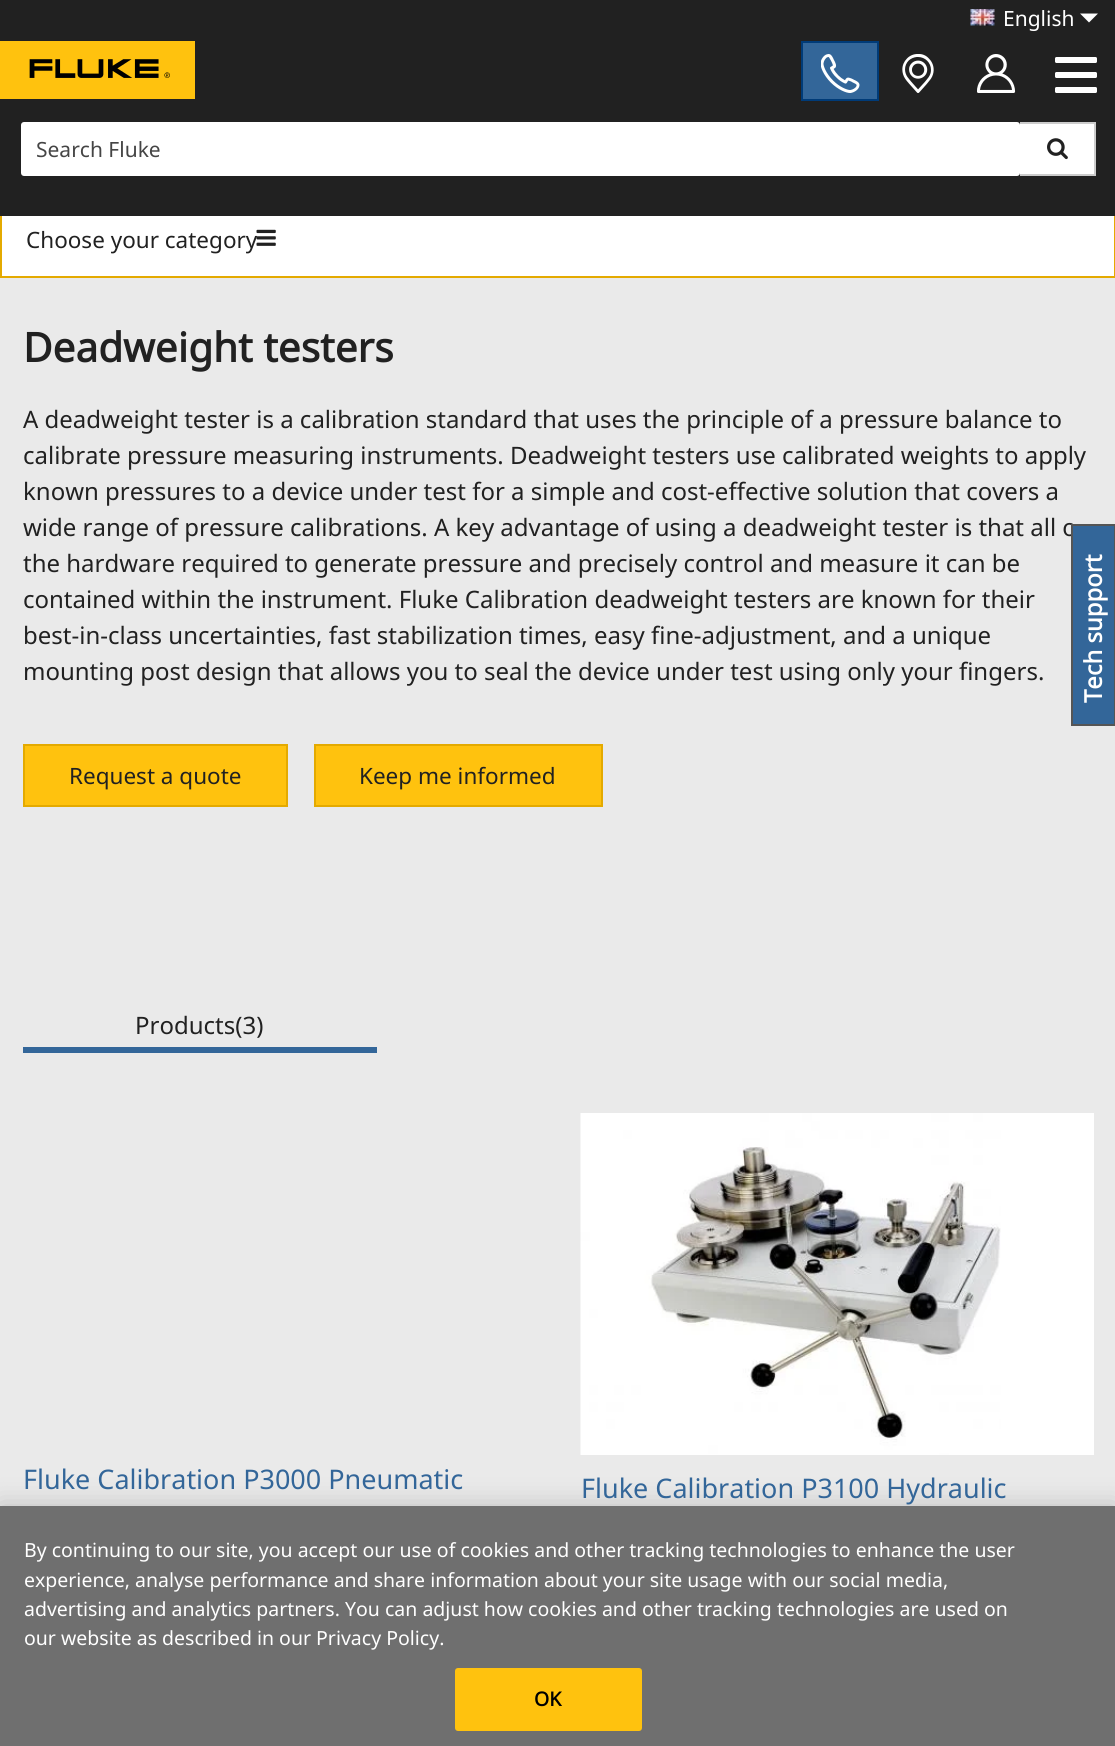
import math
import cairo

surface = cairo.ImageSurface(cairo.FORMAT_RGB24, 1115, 1746)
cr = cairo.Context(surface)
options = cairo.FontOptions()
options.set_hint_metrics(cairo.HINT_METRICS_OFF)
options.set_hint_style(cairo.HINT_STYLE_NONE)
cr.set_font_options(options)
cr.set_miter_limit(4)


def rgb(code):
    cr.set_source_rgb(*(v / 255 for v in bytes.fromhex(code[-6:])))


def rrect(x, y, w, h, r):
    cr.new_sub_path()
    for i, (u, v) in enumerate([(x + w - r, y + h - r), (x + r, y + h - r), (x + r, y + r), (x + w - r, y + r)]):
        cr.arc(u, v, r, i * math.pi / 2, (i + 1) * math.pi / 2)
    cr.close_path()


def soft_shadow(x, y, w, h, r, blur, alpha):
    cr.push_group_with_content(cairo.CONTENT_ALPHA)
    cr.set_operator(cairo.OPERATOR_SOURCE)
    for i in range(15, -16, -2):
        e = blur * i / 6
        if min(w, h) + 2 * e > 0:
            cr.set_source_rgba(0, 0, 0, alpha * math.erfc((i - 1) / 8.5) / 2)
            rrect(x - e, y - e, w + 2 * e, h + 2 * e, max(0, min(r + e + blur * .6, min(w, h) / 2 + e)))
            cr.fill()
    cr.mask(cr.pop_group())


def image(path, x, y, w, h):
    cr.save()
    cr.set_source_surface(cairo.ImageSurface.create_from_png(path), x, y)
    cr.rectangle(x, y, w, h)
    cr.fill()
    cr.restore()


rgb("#eaeaea")
cr.paint()
rgb("#ffffff")
cr.rectangle(2, 216, 1112, 60)
cr.fill()
cr.rectangle(1, 201, 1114, 76)
rgb("#e4aa00")
cr.stroke()
rgb("#212121")
cr.rectangle(0, 0, 1115, 216)
cr.fill()
image("img/1.png", 970, 9, 25, 17)
rgb("#ffffff")
cr.new_path()
cr.move_to(1080, 13.5)
cr.line_to(1098, 13.5)
cr.line_to(1089, 22.5)
cr.close_path()
cr.fill()
image("img/2.png", 0, 41, 195, 58)
rgb("#336699")
cr.rectangle(802, 42, 76, 58)
cr.fill_preserve()
rgb("#003b78")
cr.stroke()
image("img/3.png", 821, 54, 39, 39)
image("img/4.png", 902, 54, 32, 39)
image("img/5.png", 977, 54, 39, 39)
rgb("#ffffff")
rrect(1055, 57, 42, 6, 1.5)
cr.fill()
rrect(1055, 72, 42, 6, 1.5)
cr.fill()
rrect(1055, 87, 42, 6, 1.5)
cr.fill()
rrect(21, 122, 999, 54, 3)
cr.fill()
for x, y, w, h, color in [
    (1020, 124, 74, 50, "#ffffff"),
    (1020, 122, 75, 2, "#cccccc"),
    (1094, 122, 2, 54, "#cccccc"),
    (1020, 174, 75, 2, "#cccccc"),
]:
    rgb(color)
    cr.rectangle(x, y, w, h)
    cr.fill()
image("img/6.png", 1047, 138, 21, 22)
rgb("#ffc20e")
cr.rectangle(24, 745, 263, 61)
cr.fill_preserve()
rgb("#e4aa00")
cr.stroke()
rgb("#ffc20e")
cr.rectangle(315, 745, 287, 61)
cr.fill_preserve()
rgb("#e4aa00")
cr.stroke()
rgb("#336699")
cr.rectangle(23, 1047, 354, 6)
cr.fill()
rgb("#ffffff")
cr.rectangle(1001, 1113, 93, 342)
cr.fill()
image("img/8.png", 580, 1113, 421, 342)
rgb("#000000")
soft_shadow(0, 1506, 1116, 240, 0, 13.5, 0.2)
rgb("#6f6f6f")
cr.rectangle(0, 1506, 1115, 240)
cr.fill()
rgb("#ffc20e")
rrect(456, 1669, 185, 61, 2)
cr.fill_preserve()
cr.stroke()
cr.select_font_face("Noto Sans")
cr.set_font_size(21)
rgb("#ffffff")
cr.move_to(1003, 26)
cr.show_text("English")
rgb("#454545")
cr.move_to(36, 157)
cr.show_text("Search Fluke")
cr.set_font_size(22.5)
rgb("#212121")
cr.move_to(26, 248)
cr.show_text("Choose your category")
image("img/7.png", 256, 229, 20, 17)
cr.select_font_face("Noto Sans", cairo.FONT_SLANT_NORMAL, cairo.FONT_WEIGHT_BOLD)
cr.set_font_size(40.5)
cr.move_to(23, 362)
cr.show_text("Deadweight testers")
cr.select_font_face("Noto Sans")
cr.set_font_size(24)
for x, y, s in [
    (23, 428, "A deadweight tester is a calibration standard that uses the principle of a pressure balance to"),
    (23, 464, "calibrate pressure measuring instruments. Deadweight testers use calibrated weights to apply"),
    (23, 500, "known pressures to a device under test for a simple and cost-effective solution that covers a"),
    (23, 536, "wide range of pressure calibrations. A key advantage of using a deadweight tester is that all o"),
    (23, 572, "the hardware required to generate pressure and precisely control and measure it can be"),
    (23, 608, "contained within the instrument. Fluke Calibration deadweight testers are known for their"),
    (23, 644, "best-in-class uncertainties, fast stabilization times, easy fine-adjustment, and a unique"),
    (23, 680, "mounting post design that allows you to seal the device under test using only your fingers."),
]:
    cr.move_to(x, y)
    cr.show_text(s)
cr.set_font_size(22.5)
cr.move_to(69, 784)
cr.show_text("Request a quote")
cr.move_to(359, 784)
cr.show_text("Keep me informed")
cr.set_font_size(24)
cr.move_to(135, 1034)
cr.show_text("Products(3)")
cr.set_font_size(27)
rgb("#336699")
cr.move_to(23, 1489)
cr.show_text("Fluke Calibration P3000 Pneumatic")
cr.move_to(581, 1498)
cr.show_text("Fluke Calibration P3100 Hydraulic")
cr.rectangle(1072, 525, 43, 200)
cr.fill_preserve()
rgb("#555555")
cr.stroke()
cr.select_font_face("Noto Sans", cairo.FONT_SLANT_NORMAL, cairo.FONT_WEIGHT_BOLD)
cr.set_font_size(24)
rgb("#ffffff")
cr.save()
cr.translate(1102, 703)
cr.rotate(-90 * math.pi / 180)
cr.move_to(0, 0)
cr.show_text("Tech support")
cr.restore()
cr.select_font_face("Noto Sans")
cr.set_font_size(19.5)
for x, y, s in [
    (24, 1557, "By continuing to our site, you accept our use of cookies and other tracking technologies to enhance the user"),
    (24, 1587, "experience, analyse performance and share information about your site usage with our social media,"),
    (24, 1616, "advertising and analytics partners. You can adjust how cookies and other tracking technologies are used on"),
    (24, 1645, "our website as described in our Privacy Policy."),
]:
    cr.move_to(x, y)
    cr.show_text(s)
cr.select_font_face("Noto Sans", cairo.FONT_SLANT_NORMAL, cairo.FONT_WEIGHT_BOLD)
rgb("#000000")
cr.move_to(534, 1706)
cr.show_text("OK")
surface.write_to_png("page.png")
